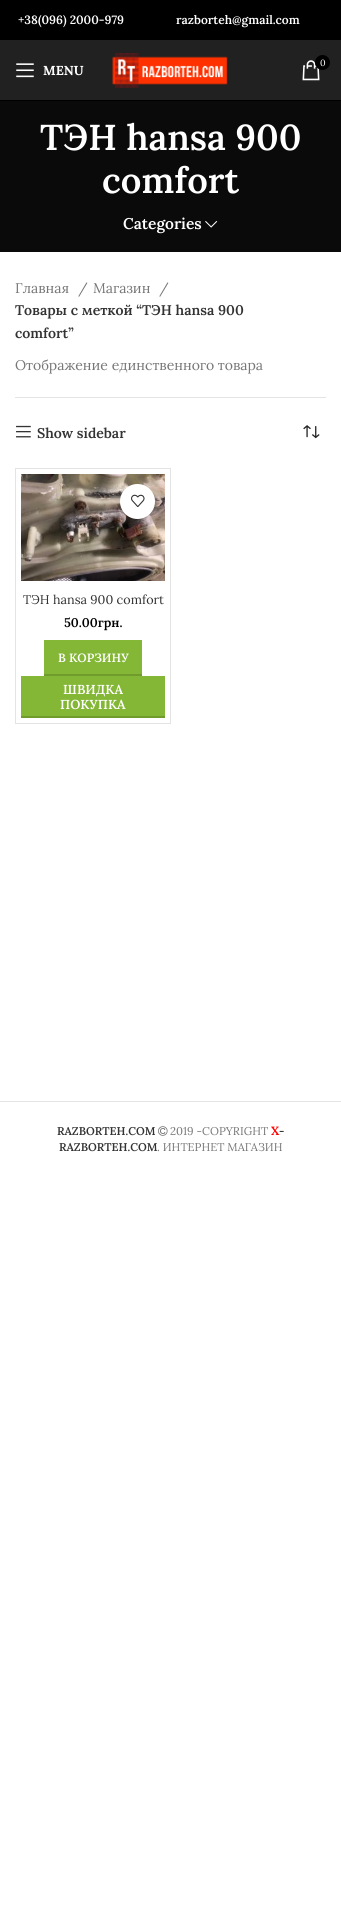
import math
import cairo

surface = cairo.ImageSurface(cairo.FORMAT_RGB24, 341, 1919)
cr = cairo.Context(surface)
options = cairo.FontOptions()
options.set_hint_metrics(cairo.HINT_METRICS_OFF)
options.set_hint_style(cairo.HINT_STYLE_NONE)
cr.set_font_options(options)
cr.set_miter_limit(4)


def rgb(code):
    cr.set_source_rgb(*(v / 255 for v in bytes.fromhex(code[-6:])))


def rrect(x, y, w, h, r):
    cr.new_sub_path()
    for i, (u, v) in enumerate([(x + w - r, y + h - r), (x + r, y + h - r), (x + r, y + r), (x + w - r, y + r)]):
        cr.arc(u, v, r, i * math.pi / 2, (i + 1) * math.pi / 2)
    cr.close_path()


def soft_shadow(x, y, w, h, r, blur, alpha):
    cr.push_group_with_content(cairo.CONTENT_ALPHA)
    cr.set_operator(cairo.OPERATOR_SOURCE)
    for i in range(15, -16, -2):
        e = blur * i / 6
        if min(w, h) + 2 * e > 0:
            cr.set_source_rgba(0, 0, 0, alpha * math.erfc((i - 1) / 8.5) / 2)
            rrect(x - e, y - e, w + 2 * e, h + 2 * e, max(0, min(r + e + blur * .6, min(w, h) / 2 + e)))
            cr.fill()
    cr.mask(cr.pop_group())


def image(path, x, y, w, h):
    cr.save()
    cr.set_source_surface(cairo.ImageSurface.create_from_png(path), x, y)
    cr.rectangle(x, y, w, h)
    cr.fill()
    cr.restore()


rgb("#ffffff")
cr.paint()
for x, y, w, h, color in [
    (0, 0, 341, 40, "#000000"),
    (0, 40, 341, 60, "#212121"),
    (0, 100, 341, 1, "#000000"),
]:
    rgb(color)
    cr.rectangle(x, y, w, h)
    cr.fill()
image("img/1.png", 112, 53, 116, 35)
image("img/2.png", 302, 60, 18, 21)
cr.arc(322.5, 62.5, 7.5, 0, 2 * math.pi)
cr.fill()
image("img/3.png", 16, 63, 18, 15)
rgb("#0a0a0a")
cr.rectangle(0, 101, 341, 151)
cr.fill()
image("img/4.png", 205, 221, 13, 7)
rgb("#e4e4e4")
cr.rectangle(15, 397, 311, 1)
cr.fill()
image("img/5.png", 16, 425, 15, 13)
image("img/6.png", 303, 425, 17, 14)
cr.rectangle(15, 468, 1, 256)
cr.fill()
cr.new_path()
cr.move_to(16, 468)
cr.line_to(171, 468)
cr.line_to(170, 469)
cr.line_to(16, 469)
cr.close_path()
cr.fill()
cr.set_source_rgba(0, 0, 0, 0.11)
cr.new_path()
cr.move_to(171, 468)
cr.line_to(171, 724)
cr.line_to(170, 723)
cr.line_to(170, 469)
cr.close_path()
cr.fill()
cr.new_path()
cr.move_to(171, 724)
cr.line_to(16, 724)
cr.line_to(16, 723)
cr.line_to(170, 723)
cr.close_path()
cr.fill()
image("img/7.png", 21, 474, 144, 107)
rgb("#000000")
soft_shadow(121, 485, 35, 35, 17.5, 0.5, 0.1)
rgb("#ffffff")
cr.arc(137.5, 501.5, 17.5, 0, 2 * math.pi)
cr.fill()
image("img/8.png", 131, 494, 14, 13)
for x, y, w, h, color in [
    (44, 640, 98, 34, "#83b735"),
    (44, 674, 98, 2, "#6f9c2d"),
    (21, 676, 144, 40, "#83b735"),
    (21, 716, 144, 2, "#6f9c2d"),
    (0, 1101, 341, 1, "#e4e4e4"),
]:
    rgb(color)
    cr.rectangle(x, y, w, h)
    cr.fill()
image("img/9.png", 158, 1126, 10, 10)
cr.select_font_face("Lora SemiBold")
cr.set_font_size(12)
rgb("#ffffff")
cr.move_to(18, 24)
cr.show_text("+38(096) 2000-979")
cr.move_to(176, 24)
cr.show_text("razborteh@gmail.com")
cr.select_font_face("Lora")
cr.set_font_size(9)
cr.move_to(320, 66)
cr.show_text("0")
cr.select_font_face("Lora", cairo.FONT_SLANT_NORMAL, cairo.FONT_WEIGHT_BOLD)
cr.set_font_size(13)
cr.move_to(43, 75)
cr.show_text("MENU")
cr.select_font_face("Lora SemiBold")
cr.set_font_size(36)
cr.move_to(40, 150)
cr.show_text("ТЭН hansa 900")
cr.move_to(102, 193)
cr.show_text("comfort")
cr.set_font_size(15.5)
cr.move_to(123, 229)
cr.show_text("Categories")
cr.select_font_face("Lora")
cr.set_font_size(14)
rgb("#777777")
for x, y, s in [
    (15, 293, "Главная"),
    (78, 293, "/"),
    (93, 293, "Магазин"),
    (159, 293, "/"),
]:
    cr.move_to(x, y)
    cr.show_text(s)
cr.select_font_face("Lora SemiBold")
rgb("#333333")
cr.move_to(15, 315)
cr.show_text("Товары с меткой “ТЭН hansa 900")
cr.move_to(15, 338)
cr.show_text("comfort”")
cr.select_font_face("Lora")
rgb("#777777")
cr.move_to(15, 370)
cr.show_text("Отображение единственного товара")
cr.select_font_face("Lora SemiBold")
rgb("#333333")
cr.move_to(37, 438)
cr.show_text("Show sidebar")
cr.select_font_face("Lora")
cr.set_font_size(12.6)
cr.move_to(23, 604)
cr.show_text("ТЭН hansa 900 comfort")
cr.select_font_face("Lora SemiBold")
rgb("#000000")
cr.move_to(64, 627)
cr.show_text("50.00грн.")
cr.set_font_size(12)
rgb("#ffffff")
cr.move_to(58, 662)
cr.show_text("В КОРЗИНУ")
cr.set_font_size(13)
cr.move_to(63, 694)
cr.show_text("ШВИДКА")
cr.move_to(60, 709)
cr.show_text("ПОКУПКА")
cr.set_font_size(11.25)
rgb("#333333")
cr.move_to(57, 1135)
cr.show_text("RAZBORTEH.COM")
cr.select_font_face("Lora")
rgb("#777777")
cr.move_to(170, 1135)
cr.show_text("2019 -COPYRIGHT")
cr.select_font_face("Lora SemiBold")
cr.set_font_size(12)
rgb("#ff0000")
cr.move_to(271, 1135)
cr.show_text("X")
cr.set_font_size(11.25)
rgb("#333333")
cr.move_to(279, 1135)
cr.show_text("-")
cr.move_to(59, 1151)
cr.show_text("RAZBORTEH.COM")
cr.select_font_face("Lora")
rgb("#777777")
cr.move_to(157, 1151)
cr.show_text(". ИНТЕРНЕТ МАГАЗИН")
surface.write_to_png("page.png")
